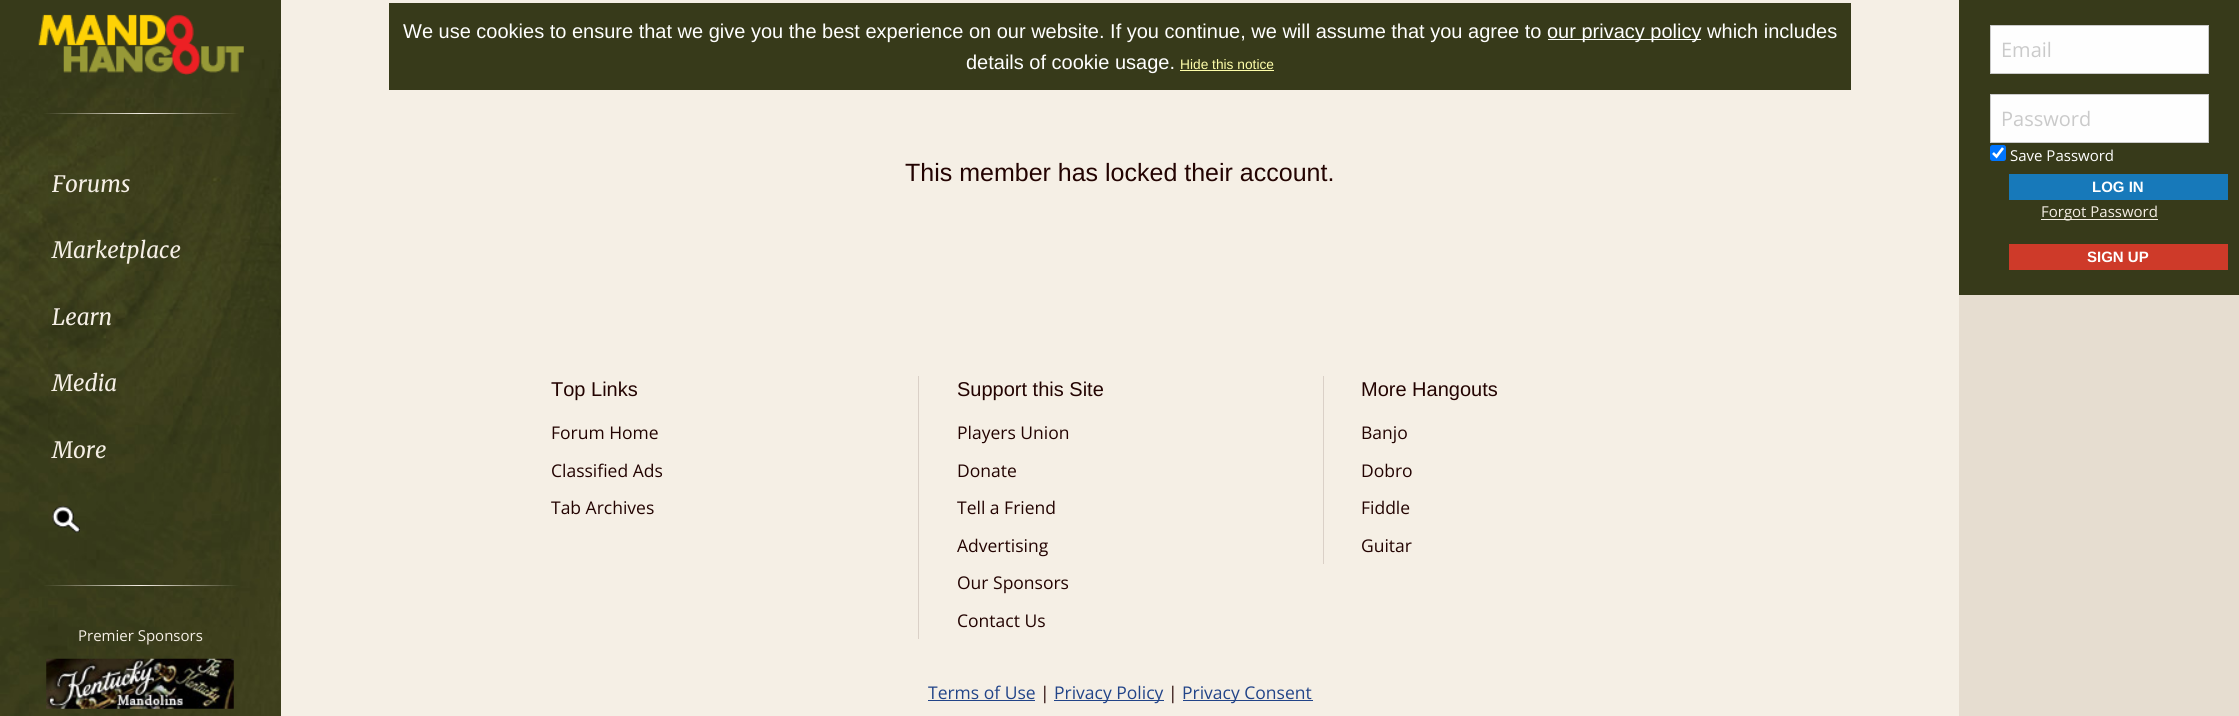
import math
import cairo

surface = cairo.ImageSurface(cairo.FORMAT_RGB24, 2239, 716)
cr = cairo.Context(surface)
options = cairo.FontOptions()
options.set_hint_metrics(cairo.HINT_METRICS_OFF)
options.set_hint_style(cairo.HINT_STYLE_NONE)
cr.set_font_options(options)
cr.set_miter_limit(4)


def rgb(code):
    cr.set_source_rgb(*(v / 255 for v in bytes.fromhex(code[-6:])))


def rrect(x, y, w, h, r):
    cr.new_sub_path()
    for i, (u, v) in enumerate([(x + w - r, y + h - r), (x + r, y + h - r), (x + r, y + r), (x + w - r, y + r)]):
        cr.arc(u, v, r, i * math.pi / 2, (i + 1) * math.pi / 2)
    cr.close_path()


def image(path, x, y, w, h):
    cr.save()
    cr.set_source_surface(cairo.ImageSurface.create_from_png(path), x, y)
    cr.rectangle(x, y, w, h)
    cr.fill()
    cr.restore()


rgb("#f5efe5")
cr.paint()
for x, y, w, h, color in [
    (389, 3, 1462, 87, "#373a1a"),
    (1548, 39, 153, 1, "#ffffff"),
    (1180, 70, 94, 1, "#ffffaa"),
    (918, 376, 1, 263, "#dad0c7"),
    (1323, 376, 1, 188, "#dad0c7"),
    (928, 700, 107, 1, "#224488"),
    (1054, 700, 110, 1, "#224488"),
    (1183, 700, 130, 1, "#224488"),
    (1959, 295, 280, 421, "#e6ddd0"),
    (1959, 0, 280, 295, "#373a1a"),
]:
    rgb(color)
    cr.rectangle(x, y, w, h)
    cr.fill()
rgb("#fefefe")
cr.rectangle(1990.5, 25.5, 218, 48)
cr.fill_preserve()
rgb("#cacaca")
cr.set_line_width(1)
cr.stroke()
rgb("#fefefe")
cr.rectangle(1990.5, 94.5, 218, 48)
cr.fill_preserve()
rgb("#cacaca")
cr.stroke()
rgb("#0075ff")
rrect(1990, 145, 16, 16, 2.5)
cr.fill()
cr.new_path()
cr.move_to(1993, 153)
cr.line_to(1996.5, 156.5)
cr.line_to(2003, 148)
rgb("#ffffff")
cr.set_line_width(2.6)
cr.stroke()
for x, y, w, h, color in [
    (2009, 174, 219, 26, "#1779ba"),
    (2041, 219, 117, 1, "#f5efe5"),
    (2009, 244, 219, 26, "#ce3a29"),
    (0, 0, 281, 50, "#373a1a"),
]:
    rgb(color)
    cr.rectangle(x, y, w, h)
    cr.fill()
image("img/1.png", 0, 50, 281, 666)
image("img/2.png", 38, 14, 206, 61)
image("img/3.png", 52, 506, 28, 27)
image("img/4.png", 46, 658, 188, 51)
cr.select_font_face("Liberation Sans")
cr.set_font_size(20)
rgb("#ffffff")
for x, y, s in [
    (403, 38, "We use cookies to ensure that we give you the best experience on our website. If you continue, we will assume that you agree to"),
    (1547, 38, "our privacy policy which includes"),
    (966, 69, "details of cookie usage."),
]:
    cr.move_to(x, y)
    cr.show_text(s)
cr.set_font_size(13.75)
rgb("#ffffaa")
cr.move_to(1180, 69)
cr.show_text("Hide this notice")
cr.set_font_size(25)
rgb("#230301")
cr.move_to(905, 181)
cr.show_text("This member has locked their account.")
cr.set_font_size(20)
cr.move_to(551, 396)
cr.show_text("Top Links")
cr.select_font_face("Open Sans")
cr.set_font_size(17.5)
for x, y, s in [
    (551, 439, "Forum Home"),
    (551, 477, "Classified Ads"),
    (551, 514, "Tab Archives"),
]:
    cr.move_to(x, y)
    cr.show_text(s)
cr.select_font_face("Liberation Sans")
cr.set_font_size(20)
cr.move_to(957, 396)
cr.show_text("Support this Site")
cr.select_font_face("Open Sans")
cr.set_font_size(17.5)
for x, y, s in [
    (957, 439, "Players Union"),
    (957, 477, "Donate"),
    (957, 514, "Tell a Friend"),
    (957, 552, "Advertising"),
    (957, 589, "Our Sponsors"),
    (957, 627, "Contact Us"),
]:
    cr.move_to(x, y)
    cr.show_text(s)
cr.select_font_face("Liberation Sans")
cr.set_font_size(20)
cr.move_to(1361, 396)
cr.show_text("More Hangouts")
cr.select_font_face("Open Sans")
cr.set_font_size(17.5)
for x, y, s in [
    (1361, 439, "Banjo"),
    (1361, 477, "Dobro"),
    (1361, 514, "Fiddle"),
    (1361, 552, "Guitar"),
]:
    cr.move_to(x, y)
    cr.show_text(s)
rgb("#224488")
cr.move_to(928, 699)
cr.show_text("Terms of Use")
rgb("#230301")
cr.move_to(1040, 699)
cr.show_text("|")
rgb("#224488")
cr.move_to(1054, 699)
cr.show_text("Privacy Policy")
rgb("#230301")
cr.move_to(1168, 699)
cr.show_text("|")
rgb("#224488")
cr.move_to(1182, 699)
cr.show_text("Privacy Consent")
cr.set_font_size(20)
rgb("#cacaca")
cr.move_to(2001, 57)
cr.show_text("Email")
cr.move_to(2001, 126)
cr.show_text("Password")
cr.set_font_size(15)
rgb("#ffffff")
cr.move_to(2010, 161)
cr.show_text("Save Password")
cr.select_font_face("Liberation Sans", cairo.FONT_SLANT_NORMAL, cairo.FONT_WEIGHT_BOLD)
cr.move_to(2092, 192)
cr.show_text("LOG IN")
cr.select_font_face("Open Sans")
rgb("#f5efe5")
cr.move_to(2041, 217)
cr.show_text("Forgot Password")
cr.select_font_face("Liberation Sans", cairo.FONT_SLANT_NORMAL, cairo.FONT_WEIGHT_BOLD)
rgb("#ffffff")
cr.move_to(2087, 262)
cr.show_text("SIGN UP")
cr.select_font_face("Merriweather", cairo.FONT_SLANT_ITALIC)
cr.set_font_size(22.5)
rgb("#f5efe5")
for x, y, s in [
    (52, 192, "Forums"),
    (52, 258, "Marketplace"),
    (52, 325, "Learn"),
    (52, 391, "Media"),
    (52, 458, "More"),
]:
    cr.move_to(x, y)
    cr.show_text(s)
cr.select_font_face("Open Sans")
cr.set_font_size(15)
cr.move_to(78, 641)
cr.show_text("Premier Sponsors")
surface.write_to_png("page.png")
